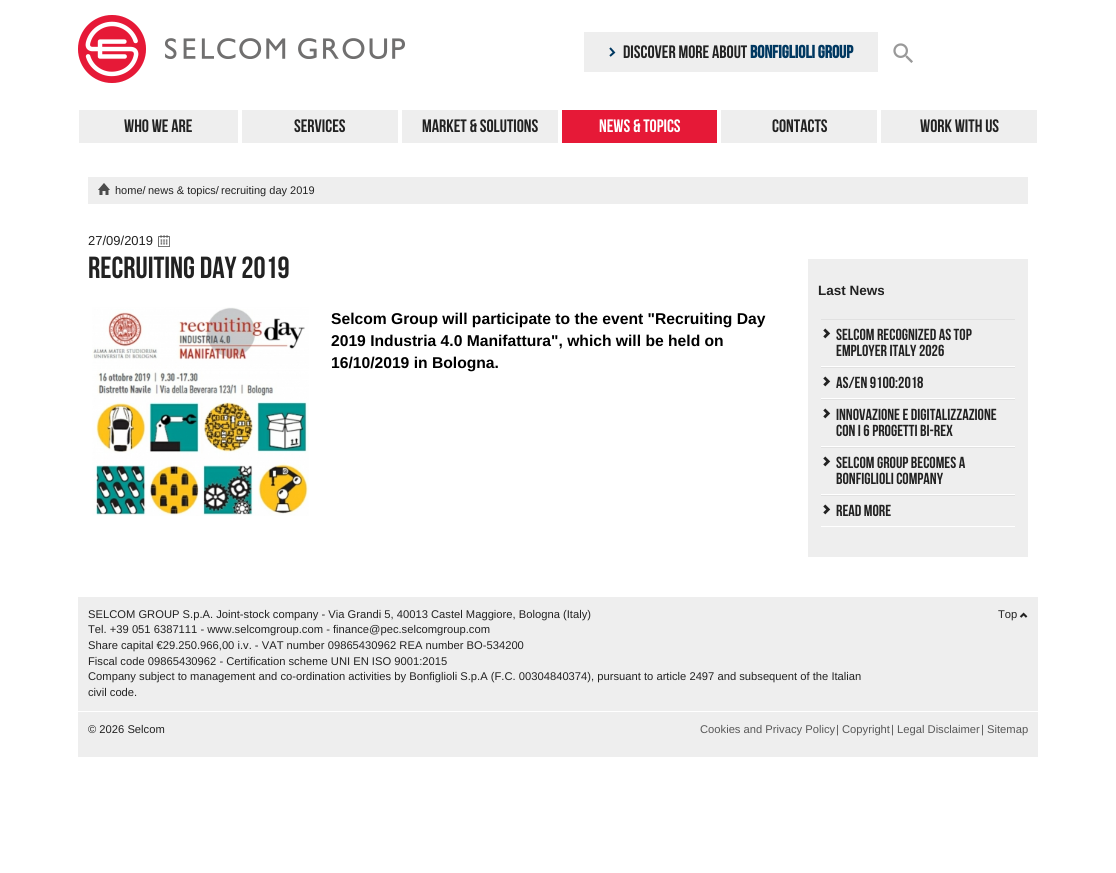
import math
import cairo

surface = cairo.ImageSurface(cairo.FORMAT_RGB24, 1116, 873)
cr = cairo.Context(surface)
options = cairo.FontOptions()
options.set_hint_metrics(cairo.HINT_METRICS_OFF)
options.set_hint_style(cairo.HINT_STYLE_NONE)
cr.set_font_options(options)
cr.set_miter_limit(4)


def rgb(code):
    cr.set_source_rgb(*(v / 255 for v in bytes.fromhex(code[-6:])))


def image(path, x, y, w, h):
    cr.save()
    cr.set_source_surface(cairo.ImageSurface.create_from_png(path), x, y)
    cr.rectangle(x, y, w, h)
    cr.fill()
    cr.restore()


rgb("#ffffff")
cr.paint()
image("img/1.png", 78, 15, 327, 68)
rgb("#eeeeee")
cr.rectangle(584, 32, 294, 40)
cr.fill()
cr.new_path()
cr.move_to(610, 48)
cr.line_to(614, 52.5)
cr.line_to(610, 56)
rgb("#003861")
cr.stroke()
image("img/2.png", 893, 43, 20, 20)
for x, y, w, h, color in [
    (79, 110, 958, 33, "#eeeeee"),
    (238, 106, 4, 41, "#ffffff"),
    (398, 106, 4, 41, "#ffffff"),
    (562, 110, 155, 33, "#e61937"),
    (558, 106, 4, 41, "#ffffff"),
    (717, 106, 4, 41, "#ffffff"),
    (877, 106, 4, 41, "#ffffff"),
    (88, 177, 940, 27, "#eeeeee"),
]:
    rgb(color)
    cr.rectangle(x, y, w, h)
    cr.fill()
image("img/3.png", 98, 183, 12, 12)
image("img/4.png", 158, 235, 12, 12)
image("img/5.png", 92, 307, 217, 209)
for x, y, w, h, color in [
    (808, 259, 220, 298, "#eeeeee"),
    (821, 319, 194, 1, "#e1e1e1"),
    (821, 366, 194, 1, "#ffffff"),
]:
    rgb(color)
    cr.rectangle(x, y, w, h)
    cr.fill()
image("img/6.png", 823, 328, 8, 11)
rgb("#e1e1e1")
cr.rectangle(821, 367, 194, 1)
cr.fill()
rgb("#ffffff")
cr.rectangle(821, 398, 194, 1)
cr.fill()
image("img/6.png", 823, 376, 8, 11)
rgb("#e1e1e1")
cr.rectangle(821, 399, 194, 1)
cr.fill()
rgb("#ffffff")
cr.rectangle(821, 446, 194, 1)
cr.fill()
image("img/6.png", 823, 408, 8, 11)
rgb("#e1e1e1")
cr.rectangle(821, 447, 194, 1)
cr.fill()
rgb("#ffffff")
cr.rectangle(821, 494, 194, 1)
cr.fill()
image("img/6.png", 823, 456, 8, 11)
rgb("#e1e1e1")
cr.rectangle(821, 495, 194, 1)
cr.fill()
rgb("#ffffff")
cr.rectangle(821, 526, 194, 1)
cr.fill()
image("img/6.png", 823, 504, 8, 11)
rgb("#eeeeee")
cr.rectangle(78, 597, 960, 160)
cr.fill()
rgb("#ffffff")
cr.rectangle(78, 711, 960, 1)
cr.fill()
image("img/7.png", 1019, 612, 9, 6)
cr.select_font_face("Bebas Neue")
cr.set_font_size(18)
rgb("#222222")
cr.move_to(623, 58)
cr.show_text("DISCOVER MORE ABOUT")
cr.select_font_face("Bebas Neue", cairo.FONT_SLANT_NORMAL, cairo.FONT_WEIGHT_BOLD)
rgb("#003861")
cr.move_to(750, 58)
cr.show_text("BONFIGLIOLI GROUP")
cr.select_font_face("Bebas Neue")
rgb("#222222")
for x, y, s in [
    (124, 132, "Who We Are"),
    (294, 132, "Services"),
    (422, 132, "Market & Solutions"),
]:
    cr.move_to(x, y)
    cr.show_text(s)
rgb("#ffffff")
cr.move_to(599, 132)
cr.show_text("News & Topics")
rgb("#222222")
cr.move_to(772, 132)
cr.show_text("Contacts")
cr.move_to(920, 132)
cr.show_text("Work with us")
cr.select_font_face("Liberation Sans")
cr.set_font_size(11)
for x, y, s in [
    (115, 194, "home/"),
    (148, 194, "news & topics/"),
    (221, 194, "recruiting day 2019"),
]:
    cr.move_to(x, y)
    cr.show_text(s)
cr.set_font_size(13)
cr.move_to(88, 245)
cr.show_text("27/09/2019")
cr.select_font_face("Bebas Neue")
cr.set_font_size(30.5)
cr.move_to(88, 278)
cr.show_text("Recruiting Day 2019")
cr.select_font_face("Liberation Sans", cairo.FONT_SLANT_NORMAL, cairo.FONT_WEIGHT_BOLD)
cr.set_font_size(15.65)
rgb("#000000")
for x, y, s in [
    (331, 324, "Selcom Group will participate to the event \"Recruiting Day"),
    (331, 346, "2019 Industria 4.0 Manifattura\", which will be held on"),
    (331, 368, "16/10/2019 in Bologna."),
]:
    cr.move_to(x, y)
    cr.show_text(s)
cr.set_font_size(13.5)
rgb("#222222")
cr.move_to(818, 295)
cr.show_text("Last News")
cr.select_font_face("Bebas Neue")
cr.set_font_size(16)
for x, y, s in [
    (836, 340, "Selcom Recognized as Top"),
    (836, 356, "Employer Italy 2026"),
    (836, 388, "AS/EN 9100:2018"),
    (836, 420, "Innovazione e Digitalizzazione"),
    (836, 436, "con i 6 progetti Bi-REX"),
    (836, 468, "Selcom Group becomes a"),
    (836, 484, "Bonfiglioli Company"),
    (836, 516, "Read More"),
]:
    cr.move_to(x, y)
    cr.show_text(s)
cr.select_font_face("Liberation Sans")
cr.set_font_size(11.2)
for x, y, s in [
    (88, 618, "SELCOM GROUP S.p.A. Joint-stock company - Via Grandi 5, 40013 Castel Maggiore, Bologna (Italy)"),
    (88, 633, "Tel. +39 051 6387111 - www.selcomgroup.com - finance@pec.selcomgroup.com"),
    (88, 649, "Share capital €29.250.966,00 i.v. - VAT number 09865430962 REA number BO-534200"),
    (88, 665, "Fiscal code 09865430962 - Certification scheme UNI EN ISO 9001:2015"),
    (88, 680, "Company subject to management and co-ordination activities by Bonfiglioli S.p.A (F.C. 00304840374), pursuant to article 2497 and subsequent of the Italian"),
    (88, 696, "civil code."),
    (998, 618, "Top"),
    (88, 733, "© 2026 Selcom"),
]:
    cr.move_to(x, y)
    cr.show_text(s)
rgb("#585858")
for x, y, s in [
    (700, 733, "Cookies and Privacy Policy"),
    (836, 733, "| Copyright"),
    (891, 733, "| Legal Disclaimer"),
    (981, 733, "| Sitemap"),
]:
    cr.move_to(x, y)
    cr.show_text(s)
surface.write_to_png("page.png")
